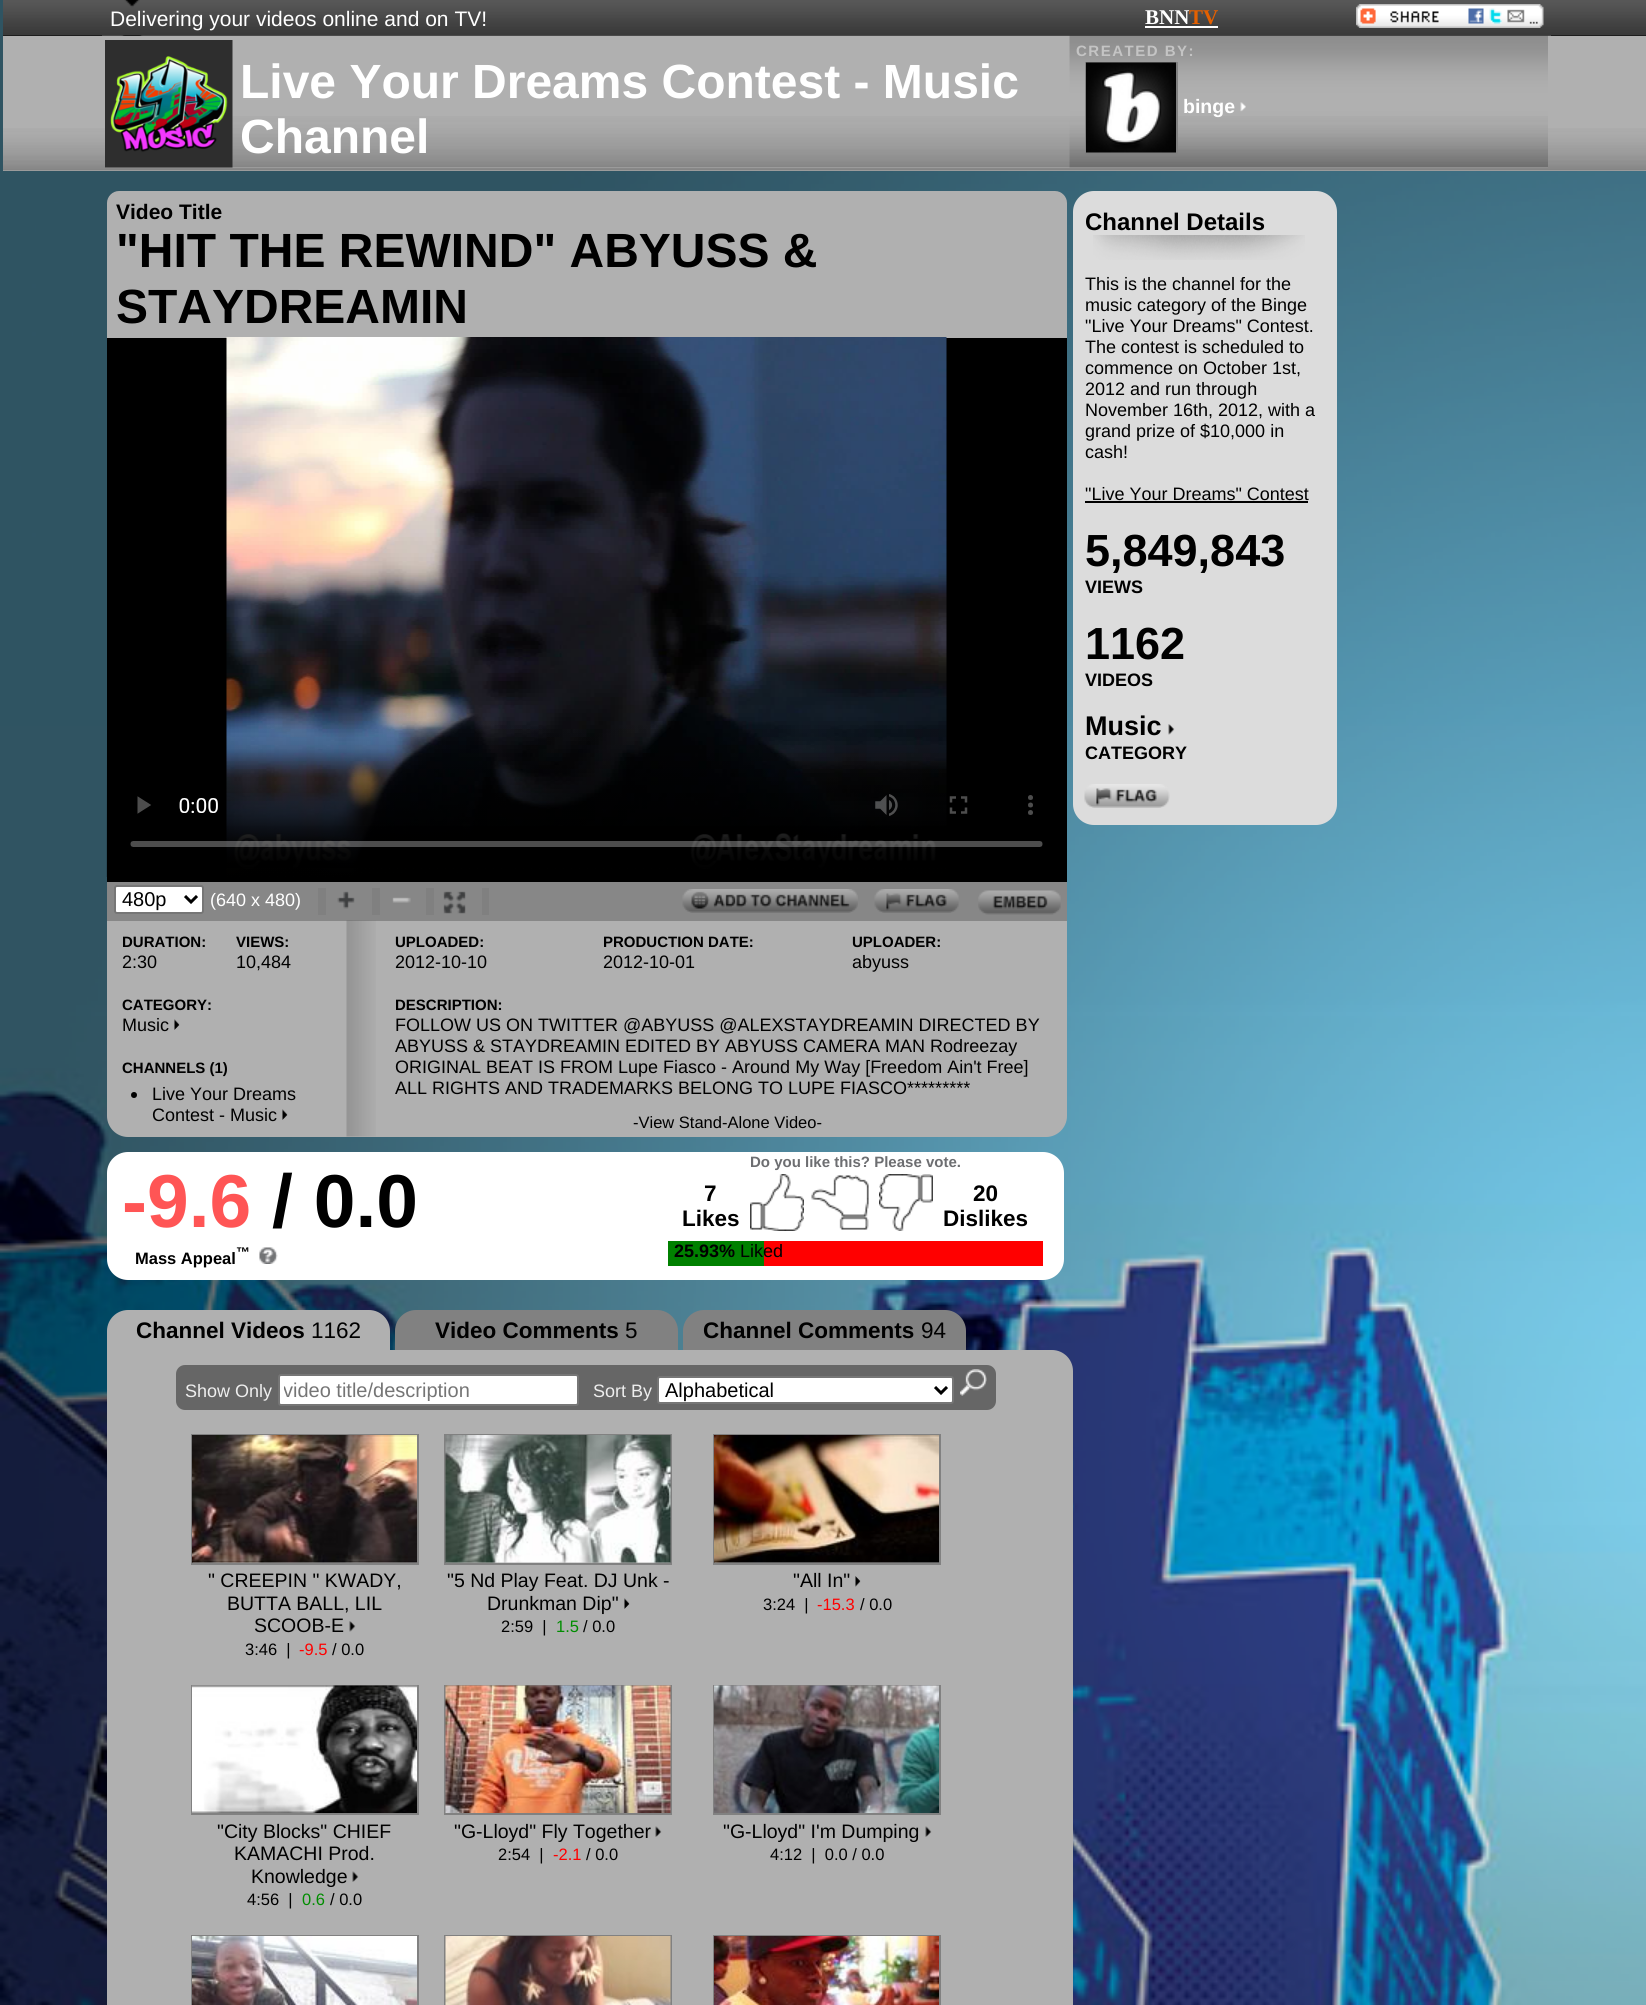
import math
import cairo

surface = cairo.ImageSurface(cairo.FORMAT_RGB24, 1646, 2005)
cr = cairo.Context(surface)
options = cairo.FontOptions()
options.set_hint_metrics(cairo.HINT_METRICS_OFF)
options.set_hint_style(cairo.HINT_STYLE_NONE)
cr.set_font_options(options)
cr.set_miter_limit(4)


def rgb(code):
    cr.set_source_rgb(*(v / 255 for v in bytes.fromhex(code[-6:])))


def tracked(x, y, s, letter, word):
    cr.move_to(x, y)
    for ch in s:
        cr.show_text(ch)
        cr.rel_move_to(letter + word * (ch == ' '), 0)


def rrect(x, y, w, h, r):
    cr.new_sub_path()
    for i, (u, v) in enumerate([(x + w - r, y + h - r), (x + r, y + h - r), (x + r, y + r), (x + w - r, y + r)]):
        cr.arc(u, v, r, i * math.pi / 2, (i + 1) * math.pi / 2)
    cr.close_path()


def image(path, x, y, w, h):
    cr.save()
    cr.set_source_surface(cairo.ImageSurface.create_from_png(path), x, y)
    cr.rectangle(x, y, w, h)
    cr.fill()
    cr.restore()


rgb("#ffffff")
cr.paint()
image("img/1.png", 0, 0, 1646, 2005)
rgb("#000000")
cr.rectangle(3, 0, 1643, 36)
cr.fill()
image("img/2.png", 3, 0, 1643, 36)
cr.rectangle(102, 0, 1449, 36)
cr.fill()
image("img/3.png", 102, 0, 1449, 36)
rgb("#ffffff")
cr.rectangle(1145, 26, 73, 2)
cr.fill()
image("img/4.png", 1356, 4, 188, 24)
rgb("#b0b0b0")
cr.rectangle(3, 36, 1643, 135)
cr.fill()
image("img/5.png", 3, 128, 1643, 43)
cr.rectangle(105, 128, 1443, 40)
cr.fill()
image("img/6.png", 105, 116, 1443, 52)
image("img/7.png", 105, 40, 128, 128)
image("img/8.png", 1069, 35, 479, 133)
cr.rectangle(1086, 63, 91, 91)
rgb("#818181")
cr.stroke()
image("img/9.png", 1086, 62, 90, 91)
image("img/10.png", 1240, 102, 6, 10)
rgb("#b0b0b0")
cr.new_path()
cr.move_to(122, 191)
cr.line_to(1052, 191)
cr.curve_to(1060.5, 191, 1067, 197.5, 1067, 206)
cr.line_to(1067, 1116)
cr.curve_to(1067, 1127.5, 1057.5, 1137, 1046, 1137)
cr.line_to(128, 1137)
cr.curve_to(116.5, 1137, 107, 1127.5, 107, 1116)
cr.line_to(107, 206)
cr.curve_to(107, 197.5, 113.5, 191, 122, 191)
cr.close_path()
cr.fill()
rgb("#000000")
cr.new_path()
cr.move_to(122, 191)
cr.line_to(1052, 191)
cr.curve_to(1060.5, 191, 1067, 197.5, 1067, 206)
cr.line_to(1067, 882)
cr.line_to(107, 882)
cr.line_to(107, 206)
cr.curve_to(107, 197.5, 113.5, 191, 122, 191)
cr.close_path()
cr.fill()
rgb("#b0b0b0")
cr.new_path()
cr.move_to(119, 191)
cr.line_to(1055, 191)
cr.curve_to(1061.5, 191, 1067, 196.5, 1067, 203)
cr.line_to(1067, 338)
cr.line_to(107, 338)
cr.line_to(107, 203)
cr.curve_to(107, 196.5, 112.5, 191, 119, 191)
cr.close_path()
cr.fill()
image("img/11.png", 106, 337, 937, 540)
rgb("#878787")
cr.rectangle(107, 882, 960, 39)
cr.fill()
rgb("#ffffff")
rrect(115, 886, 88, 27, 2)
cr.fill_preserve()
rgb("#767676")
cr.stroke()
cr.new_path()
cr.move_to(185, 896)
cr.line_to(191, 902)
cr.line_to(197, 896)
rgb("#000000")
cr.set_line_width(3)
cr.stroke()
rgb("#808080")
cr.rectangle(318, 888, 8, 27)
cr.fill()
image("img/12.png", 337, 891, 18, 18)
cr.rectangle(372, 888, 8, 27)
cr.fill()
image("img/13.png", 392, 897, 19, 6)
cr.rectangle(426, 888, 8, 27)
cr.fill()
image("img/14.png", 443, 891, 23, 23)
cr.rectangle(482, 888, 7, 27)
cr.fill()
image("img/15.png", 682, 889, 176, 24)
image("img/16.png", 874, 889, 85, 24)
image("img/17.png", 978, 890, 83, 25)
image("img/18.png", 174, 1019, 6, 11)
rgb("#000000")
cr.arc(134, 1095, 3, 0, 2 * math.pi)
cr.fill()
image("img/18.png", 282, 1109, 6, 11)
image("img/19.png", 346, 920, 30, 217)
rgb("#dcdcdc")
rrect(1073, 191, 264, 634, 21)
cr.fill()
image("img/20.png", 1093, 235, 212, 25)
rgb("#000000")
cr.rectangle(1085, 501, 223, 2)
cr.fill()
image("img/21.png", 1168, 724, 7, 11)
image("img/22.png", 1084, 784, 86, 24)
rgb("#ffffff")
rrect(107, 1152, 957, 128, 21)
cr.fill()
image("img/23.png", 259, 1247, 19, 17)
image("img/24.png", 750, 1174, 54, 57)
image("img/25.png", 811, 1175, 58, 55)
image("img/26.png", 879, 1174, 54, 57)
rgb("#ff0000")
cr.rectangle(764, 1241, 279, 25)
cr.fill()
rgb("#008000")
cr.rectangle(668, 1241, 96, 25)
cr.fill()
rgb("#b0b0b0")
cr.new_path()
cr.move_to(128, 1310)
cr.line_to(369, 1310)
cr.curve_to(380.5, 1310, 390, 1319.5, 390, 1331)
cr.line_to(390, 1350)
cr.line_to(107, 1350)
cr.line_to(107, 1331)
cr.curve_to(107, 1319.5, 116.5, 1310, 128, 1310)
cr.close_path()
cr.fill()
rgb("#818181")
cr.new_path()
cr.move_to(416, 1310)
cr.line_to(657, 1310)
cr.curve_to(668.5, 1310, 678, 1319.5, 678, 1331)
cr.line_to(678, 1350)
cr.line_to(395, 1350)
cr.line_to(395, 1331)
cr.curve_to(395, 1319.5, 404.5, 1310, 416, 1310)
cr.close_path()
cr.fill()
cr.new_path()
cr.move_to(704, 1310)
cr.line_to(945, 1310)
cr.curve_to(956.5, 1310, 966, 1319.5, 966, 1331)
cr.line_to(966, 1350)
cr.line_to(683, 1350)
cr.line_to(683, 1331)
cr.curve_to(683, 1319.5, 692.5, 1310, 704, 1310)
cr.close_path()
cr.fill()
rgb("#b0b0b0")
cr.new_path()
cr.move_to(107, 1350)
cr.line_to(1052, 1350)
cr.curve_to(1063.5, 1350, 1073, 1359.5, 1073, 1371)
cr.line_to(1073, 2005)
cr.curve_to(1073, 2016.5, 1063.5, 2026, 1052, 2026)
cr.line_to(128, 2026)
cr.curve_to(116.5, 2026, 107, 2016.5, 107, 2005)
cr.close_path()
cr.fill()
rgb("#666666")
rrect(176, 1365, 820, 45, 9)
cr.fill()
rgb("#ffffff")
rrect(279, 1375, 299, 30, 2)
cr.fill_preserve()
rgb("#767676")
cr.set_line_width(2)
cr.stroke()
rgb("#ffffff")
rrect(658, 1377, 295, 26, 2)
cr.fill_preserve()
rgb("#767676")
cr.stroke()
cr.new_path()
cr.move_to(935, 1387)
cr.line_to(941, 1393)
cr.line_to(947, 1387)
rgb("#000000")
cr.set_line_width(3)
cr.stroke()
image("img/27.png", 960, 1369, 27, 27)
cr.rectangle(192, 1435, 226, 129)
rgb("#818181")
cr.set_line_width(2)
cr.stroke()
image("img/28.png", 192, 1435, 225, 128)
image("img/29.png", 349, 1621, 7, 11)
cr.rectangle(445, 1435, 226, 129)
cr.stroke()
image("img/30.png", 445, 1435, 226, 128)
image("img/18.png", 624, 1598, 6, 11)
cr.rectangle(714, 1435, 226, 129)
cr.stroke()
image("img/31.png", 714, 1435, 225, 128)
image("img/32.png", 855, 1576, 6, 11)
cr.rectangle(192, 1686, 226, 128)
cr.stroke()
image("img/33.png", 192, 1685, 225, 128)
image("img/34.png", 352, 1871, 7, 11)
cr.rectangle(445, 1686, 226, 128)
cr.stroke()
image("img/35.png", 445, 1685, 226, 128)
image("img/34.png", 655, 1826, 7, 11)
cr.rectangle(714, 1686, 226, 128)
cr.stroke()
image("img/36.png", 714, 1685, 225, 128)
image("img/34.png", 925, 1826, 7, 11)
cr.new_path()
cr.move_to(191, 1935)
cr.line_to(191, 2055)
cr.line_to(193, 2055)
cr.line_to(193, 1937)
cr.line_to(417, 1937)
cr.line_to(417, 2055)
cr.line_to(419, 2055)
cr.line_to(419, 1935)
cr.close_path()
cr.fill()
image("img/37.png", 192, 1936, 225, 69)
cr.new_path()
cr.move_to(444, 1935)
cr.line_to(444, 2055)
cr.line_to(446, 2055)
cr.line_to(446, 1937)
cr.line_to(670, 1937)
cr.line_to(670, 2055)
cr.line_to(672, 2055)
cr.line_to(672, 1935)
cr.close_path()
cr.fill()
image("img/38.png", 445, 1936, 226, 69)
cr.new_path()
cr.move_to(713, 1935)
cr.line_to(713, 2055)
cr.line_to(715, 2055)
cr.line_to(715, 1937)
cr.line_to(939, 1937)
cr.line_to(939, 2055)
cr.line_to(941, 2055)
cr.line_to(941, 1935)
cr.close_path()
cr.fill()
image("img/39.png", 714, 1936, 225, 69)
cr.select_font_face("Liberation Sans")
cr.set_font_size(21)
rgb("#ffffff")
cr.move_to(110, 26)
cr.show_text("Delivering your videos online and on TV!")
cr.select_font_face("Liberation Serif", cairo.FONT_SLANT_NORMAL, cairo.FONT_WEIGHT_BOLD)
cr.move_to(1145, 24)
cr.show_text("BNN")
rgb("#e46000")
cr.move_to(1189, 24)
cr.show_text("TV")
cr.select_font_face("Liberation Sans", cairo.FONT_SLANT_NORMAL, cairo.FONT_WEIGHT_BOLD)
cr.set_font_size(48)
rgb("#ffffff")
cr.move_to(240, 98)
cr.show_text("Live Your Dreams Contest - Music")
cr.move_to(240, 153)
cr.show_text("Channel")
cr.set_font_size(15)
rgb("#c4c4c4")
tracked(1076, 56, "CREATED BY:", 1.5, 0)
cr.set_font_size(19.5)
rgb("#ffffff")
cr.move_to(1183, 113)
cr.show_text("binge")
cr.set_font_size(21)
rgb("#000000")
cr.move_to(116, 219)
cr.show_text("Video Title")
cr.set_font_size(48)
cr.move_to(116, 267)
cr.show_text("\"HIT THE REWIND\" ABYUSS &")
cr.move_to(116, 323)
cr.show_text("STAYDREAMIN")
cr.select_font_face("Liberation Sans")
cr.set_font_size(20)
cr.move_to(122, 906)
cr.show_text("480p")
cr.set_font_size(18)
rgb("#ffffff")
cr.move_to(210, 906)
cr.show_text("(640 x 480)")
cr.select_font_face("Liberation Sans", cairo.FONT_SLANT_NORMAL, cairo.FONT_WEIGHT_BOLD)
cr.set_font_size(15)
rgb("#000000")
cr.move_to(122, 947)
cr.show_text("DURATION:")
cr.select_font_face("Liberation Sans")
cr.set_font_size(18)
cr.move_to(122, 968)
cr.show_text("2:30")
cr.select_font_face("Liberation Sans", cairo.FONT_SLANT_NORMAL, cairo.FONT_WEIGHT_BOLD)
cr.set_font_size(15)
cr.move_to(236, 947)
cr.show_text("VIEWS:")
cr.select_font_face("Liberation Sans")
cr.set_font_size(18)
cr.move_to(236, 968)
cr.show_text("10,484")
cr.select_font_face("Liberation Sans", cairo.FONT_SLANT_NORMAL, cairo.FONT_WEIGHT_BOLD)
cr.set_font_size(15)
cr.move_to(122, 1010)
cr.show_text("CATEGORY:")
cr.select_font_face("Liberation Sans")
cr.set_font_size(18)
cr.move_to(122, 1031)
cr.show_text("Music")
cr.select_font_face("Liberation Sans", cairo.FONT_SLANT_NORMAL, cairo.FONT_WEIGHT_BOLD)
cr.set_font_size(15)
cr.move_to(122, 1073)
cr.show_text("CHANNELS (1)")
cr.select_font_face("Liberation Sans")
cr.set_font_size(18)
cr.move_to(152, 1100)
cr.show_text("Live Your Dreams")
cr.move_to(152, 1121)
cr.show_text("Contest - Music")
cr.select_font_face("Liberation Sans", cairo.FONT_SLANT_NORMAL, cairo.FONT_WEIGHT_BOLD)
cr.set_font_size(15)
cr.move_to(395, 947)
cr.show_text("UPLOADED:")
cr.select_font_face("Liberation Sans")
cr.set_font_size(18)
cr.move_to(395, 968)
cr.show_text("2012-10-10")
cr.select_font_face("Liberation Sans", cairo.FONT_SLANT_NORMAL, cairo.FONT_WEIGHT_BOLD)
cr.set_font_size(15)
cr.move_to(603, 947)
cr.show_text("PRODUCTION DATE:")
cr.select_font_face("Liberation Sans")
cr.set_font_size(18)
cr.move_to(603, 968)
cr.show_text("2012-10-01")
cr.select_font_face("Liberation Sans", cairo.FONT_SLANT_NORMAL, cairo.FONT_WEIGHT_BOLD)
cr.set_font_size(15)
cr.move_to(852, 947)
cr.show_text("UPLOADER:")
cr.select_font_face("Liberation Sans")
cr.set_font_size(18)
cr.move_to(852, 968)
cr.show_text("abyuss")
cr.select_font_face("Liberation Sans", cairo.FONT_SLANT_NORMAL, cairo.FONT_WEIGHT_BOLD)
cr.set_font_size(15)
cr.move_to(395, 1010)
cr.show_text("DESCRIPTION:")
cr.select_font_face("Liberation Sans")
cr.set_font_size(18)
for x, y, s in [
    (395, 1031, "FOLLOW US ON TWITTER @ABYUSS @ALEXSTAYDREAMIN DIRECTED BY"),
    (395, 1052, "ABYUSS & STAYDREAMIN EDITED BY ABYUSS CAMERA MAN Rodreezay"),
    (395, 1073, "ORIGINAL BEAT IS FROM Lupe Fiasco - Around My Way [Freedom Ain't Free]"),
    (395, 1094, "ALL RIGHTS AND TRADEMARKS BELONG TO LUPE FIASCO*********"),
]:
    cr.move_to(x, y)
    cr.show_text(s)
cr.set_font_size(16.5)
cr.move_to(633, 1128)
cr.show_text("-View Stand-Alone Video-")
cr.select_font_face("Liberation Sans", cairo.FONT_SLANT_NORMAL, cairo.FONT_WEIGHT_BOLD)
cr.set_font_size(24)
cr.move_to(1085, 230)
cr.show_text("Channel Details")
cr.select_font_face("Liberation Sans")
cr.set_font_size(18)
for x, y, s in [
    (1085, 290, "This is the channel for the"),
    (1085, 311, "music category of the Binge"),
    (1085, 332, "\"Live Your Dreams\" Contest."),
    (1085, 353, "The contest is scheduled to"),
    (1085, 374, "commence on October 1st,"),
    (1085, 395, "2012 and run through"),
    (1085, 416, "November 16th, 2012, with a"),
    (1085, 437, "grand prize of $10,000 in"),
    (1085, 458, "cash!"),
    (1085, 500, "\"Live Your Dreams\" Contest"),
]:
    cr.move_to(x, y)
    cr.show_text(s)
cr.select_font_face("Liberation Sans", cairo.FONT_SLANT_NORMAL, cairo.FONT_WEIGHT_BOLD)
cr.set_font_size(45)
cr.move_to(1085, 566)
cr.show_text("5,849,843")
cr.set_font_size(18)
cr.move_to(1085, 593)
cr.show_text("VIEWS")
cr.set_font_size(45)
cr.move_to(1085, 659)
cr.show_text("1162")
cr.set_font_size(18)
cr.move_to(1085, 686)
cr.show_text("VIDEOS")
cr.set_font_size(27)
cr.move_to(1085, 735)
cr.show_text("Music")
cr.set_font_size(18)
cr.move_to(1085, 759)
cr.show_text("CATEGORY")
cr.set_font_size(75)
rgb("#ff5555")
cr.move_to(122, 1227)
cr.show_text("-9.6")
rgb("#000000")
cr.move_to(272, 1227)
cr.show_text("/ 0.0")
cr.set_font_size(16.5)
cr.move_to(135, 1264)
cr.show_text("Mass Appeal")
cr.set_font_size(14)
cr.move_to(236, 1257)
cr.show_text("™")
cr.set_font_size(15)
rgb("#6d6e71")
cr.move_to(750, 1167)
cr.show_text("Do you like this? Please vote.")
cr.set_font_size(22.5)
rgb("#000000")
for x, y, s in [
    (704, 1201, "7"),
    (682, 1226, "Likes"),
    (973, 1201, "20"),
    (943, 1226, "Dislikes"),
]:
    cr.move_to(x, y)
    cr.show_text(s)
cr.set_font_size(18)
cr.move_to(674, 1257)
cr.show_text("25.93%")
cr.select_font_face("Liberation Sans")
cr.move_to(740, 1257)
cr.show_text("Liked")
cr.select_font_face("Liberation Sans", cairo.FONT_SLANT_NORMAL, cairo.FONT_WEIGHT_BOLD)
cr.set_font_size(22.5)
cr.move_to(136, 1338)
cr.show_text("Channel Videos")
cr.select_font_face("Liberation Sans")
cr.move_to(311, 1338)
cr.show_text("1162")
cr.select_font_face("Liberation Sans", cairo.FONT_SLANT_NORMAL, cairo.FONT_WEIGHT_BOLD)
cr.move_to(435, 1338)
cr.show_text("Video Comments")
cr.select_font_face("Liberation Sans")
cr.move_to(625, 1338)
cr.show_text("5")
cr.select_font_face("Liberation Sans", cairo.FONT_SLANT_NORMAL, cairo.FONT_WEIGHT_BOLD)
cr.move_to(703, 1338)
cr.show_text("Channel Comments")
cr.select_font_face("Liberation Sans")
cr.move_to(921, 1338)
cr.show_text("94")
cr.set_font_size(18)
rgb("#eeeeee")
cr.move_to(185, 1397)
cr.show_text("Show Only")
cr.save()
cr.rectangle(284, 1379, 289, 22)
cr.clip()
cr.set_font_size(20)
rgb("#757575")
cr.move_to(283, 1397)
cr.show_text("video title/description")
cr.restore()
cr.move_to(593, 1397)
cr.show_text("Sort By")
cr.set_font_size(20)
rgb("#000000")
cr.move_to(665, 1397)
cr.show_text("Alphabetical")
cr.set_font_size(19.5)
for x, y, s in [
    (208, 1587, "\" CREEPIN \" KWADY,"),
    (227, 1610, "BUTTA BALL, LIL"),
    (254, 1632, "SCOOB-E"),
]:
    cr.move_to(x, y)
    cr.show_text(s)
cr.set_font_size(16.5)
cr.move_to(245, 1655)
cr.show_text("3:46  |")
rgb("#ff0000")
cr.move_to(299, 1655)
cr.show_text("-9.5")
rgb("#000000")
cr.move_to(332, 1655)
cr.show_text("/ 0.0")
cr.set_font_size(19.5)
cr.move_to(447, 1587)
cr.show_text("\"5 Nd Play Feat. DJ Unk -")
cr.move_to(487, 1610)
cr.show_text("Drunkman Dip\"")
cr.set_font_size(16.5)
cr.move_to(501, 1632)
cr.show_text("2:59  |")
rgb("#008d00")
cr.move_to(556, 1632)
cr.show_text("1.5")
rgb("#000000")
cr.move_to(583, 1632)
cr.show_text("/ 0.0")
cr.set_font_size(19.5)
cr.move_to(793, 1587)
cr.show_text("\"All In\"")
cr.set_font_size(16.5)
cr.move_to(763, 1610)
cr.show_text("3:24  |")
rgb("#ff0000")
cr.move_to(817, 1610)
cr.show_text("-15.3")
rgb("#000000")
cr.move_to(860, 1610)
cr.show_text("/ 0.0")
cr.set_font_size(19.5)
for x, y, s in [
    (217, 1838, "\"City Blocks\" CHIEF"),
    (234, 1860, "KAMACHI Prod."),
    (251, 1883, "Knowledge"),
]:
    cr.move_to(x, y)
    cr.show_text(s)
cr.set_font_size(16.5)
cr.move_to(247, 1905)
cr.show_text("4:56  |")
rgb("#008d00")
cr.move_to(302, 1905)
cr.show_text("0.6")
rgb("#000000")
cr.move_to(330, 1905)
cr.show_text("/ 0.0")
cr.set_font_size(19.5)
cr.move_to(454, 1838)
cr.show_text("\"G-Lloyd\" Fly Together")
cr.set_font_size(16.5)
cr.move_to(498, 1860)
cr.show_text("2:54  |")
rgb("#ff0000")
cr.move_to(553, 1860)
cr.show_text("-2.1")
rgb("#000000")
cr.move_to(586, 1860)
cr.show_text("/ 0.0")
cr.set_font_size(19.5)
cr.move_to(723, 1838)
cr.show_text("\"G-Lloyd\" I'm Dumping")
cr.set_font_size(16.5)
cr.move_to(770, 1860)
cr.show_text("4:12  |  0.0 / 0.0")
surface.write_to_png("page.png")
